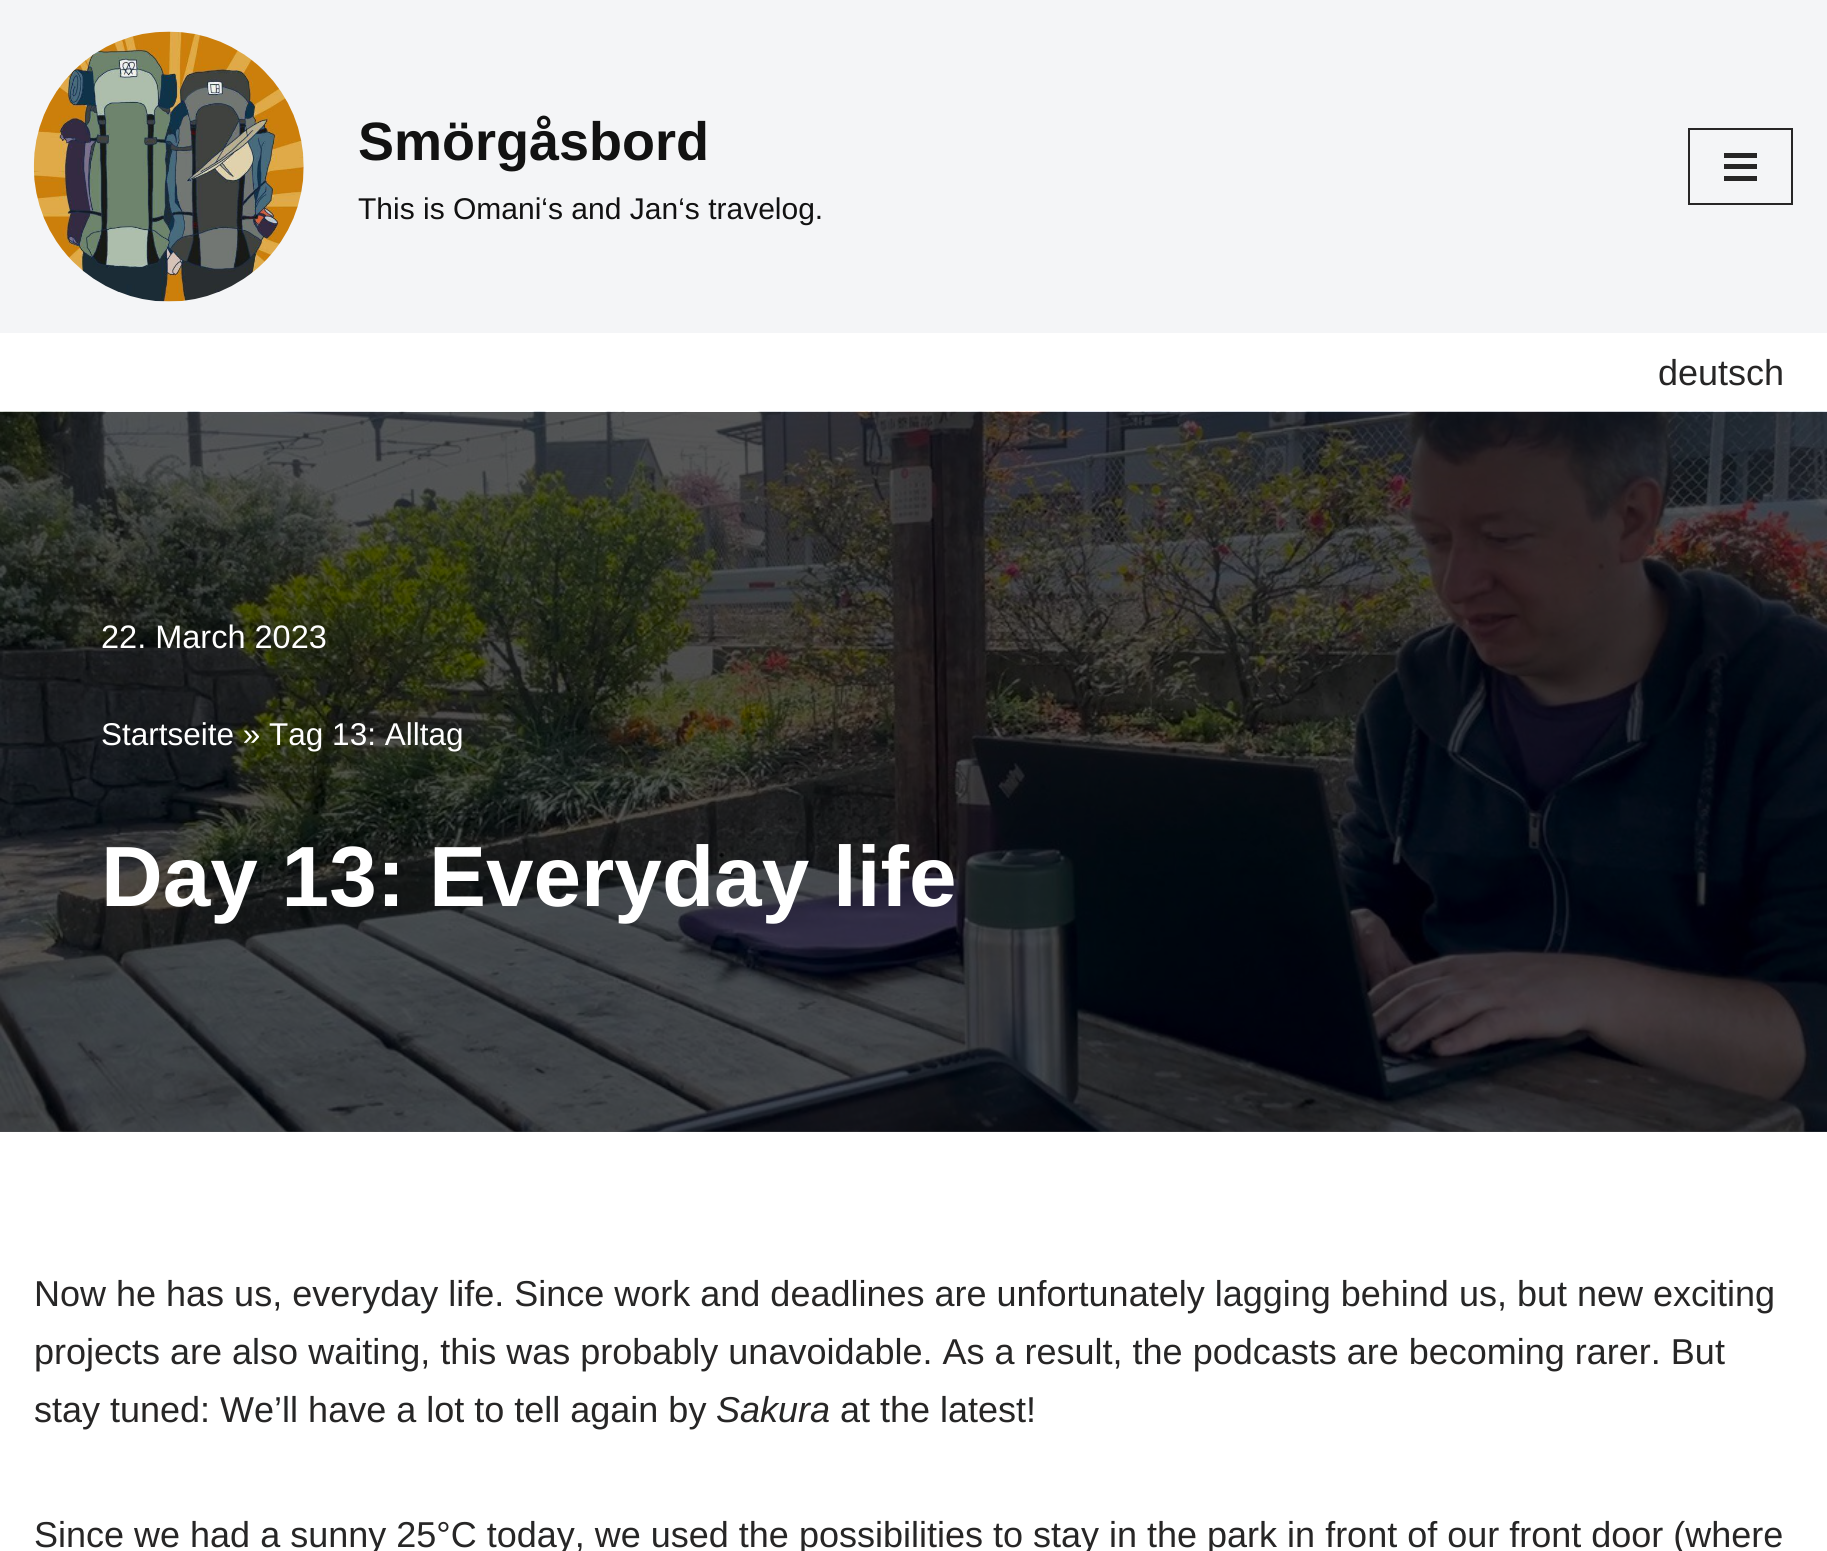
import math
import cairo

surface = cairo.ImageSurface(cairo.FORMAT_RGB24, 1827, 1551)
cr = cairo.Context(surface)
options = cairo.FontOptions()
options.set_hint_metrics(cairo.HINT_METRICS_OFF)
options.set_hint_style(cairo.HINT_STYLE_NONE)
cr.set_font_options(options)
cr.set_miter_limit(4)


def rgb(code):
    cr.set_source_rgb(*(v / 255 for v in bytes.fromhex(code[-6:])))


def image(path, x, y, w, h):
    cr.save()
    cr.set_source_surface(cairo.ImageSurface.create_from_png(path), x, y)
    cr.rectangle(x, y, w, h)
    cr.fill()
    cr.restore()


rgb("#ffffff")
cr.paint()
rgb("#f4f5f7")
cr.rectangle(0, 0, 1827, 333)
cr.fill()
image("img/1.png", 33, 31, 271, 271)
cr.rectangle(1689, 129, 103, 75)
rgb("#272626")
cr.stroke()
for x, y, w, h, color in [
    (1724, 153, 33, 5, "#272626"),
    (1724, 164, 33, 5, "#272626"),
    (1724, 176, 33, 5, "#272626"),
]:
    rgb(color)
    cr.rectangle(x, y, w, h)
    cr.fill()
image("img/2.png", 0, 411, 1827, 721)
cr.set_source_rgba(0, 0, 0, 0.66)
cr.rectangle(0, 412, 1827, 720)
cr.fill()
cr.select_font_face("Liberation Sans", cairo.FONT_SLANT_NORMAL, cairo.FONT_WEIGHT_BOLD)
cr.set_font_size(54)
rgb("#121212")
cr.move_to(358, 160)
cr.show_text("Smörgåsbord")
cr.select_font_face("Liberation Sans")
cr.set_font_size(30)
cr.move_to(358, 219)
cr.show_text("This is Omani‘s and Jan‘s travelog.")
cr.set_font_size(36)
rgb("#272626")
cr.move_to(1658, 385)
cr.show_text("deutsch")
cr.set_font_size(32.5)
rgb("#ffffff")
cr.move_to(101, 648)
cr.show_text("22. March 2023")
cr.set_font_size(31.5)
cr.move_to(101, 745)
cr.show_text("Startseite » Tag 13: Alltag")
cr.select_font_face("Liberation Sans", cairo.FONT_SLANT_NORMAL, cairo.FONT_WEIGHT_BOLD)
cr.set_font_size(85.5)
cr.move_to(101, 906)
cr.show_text("Day 13: Everyday life")
cr.select_font_face("Liberation Sans")
cr.set_font_size(36)
rgb("#272626")
for x, y, s in [
    (34, 1306, "Now he has us, everyday life. Since work and deadlines are unfortunately lagging behind us, but new exciting"),
    (34, 1364, "projects are also waiting, this was probably unavoidable. As a result, the podcasts are becoming rarer. But"),
    (34, 1422, "stay tuned: We’ll have a lot to tell again by"),
]:
    cr.move_to(x, y)
    cr.show_text(s)
cr.select_font_face("Liberation Sans", cairo.FONT_SLANT_ITALIC)
cr.move_to(716, 1422)
cr.show_text("Sakura")
cr.select_font_face("Liberation Sans")
cr.move_to(840, 1422)
cr.show_text("at the latest!")
cr.move_to(34, 1547)
cr.show_text("Since we had a sunny 25°C today, we used the possibilities to stay in the park in front of our front door (where")
surface.write_to_png("page.png")
